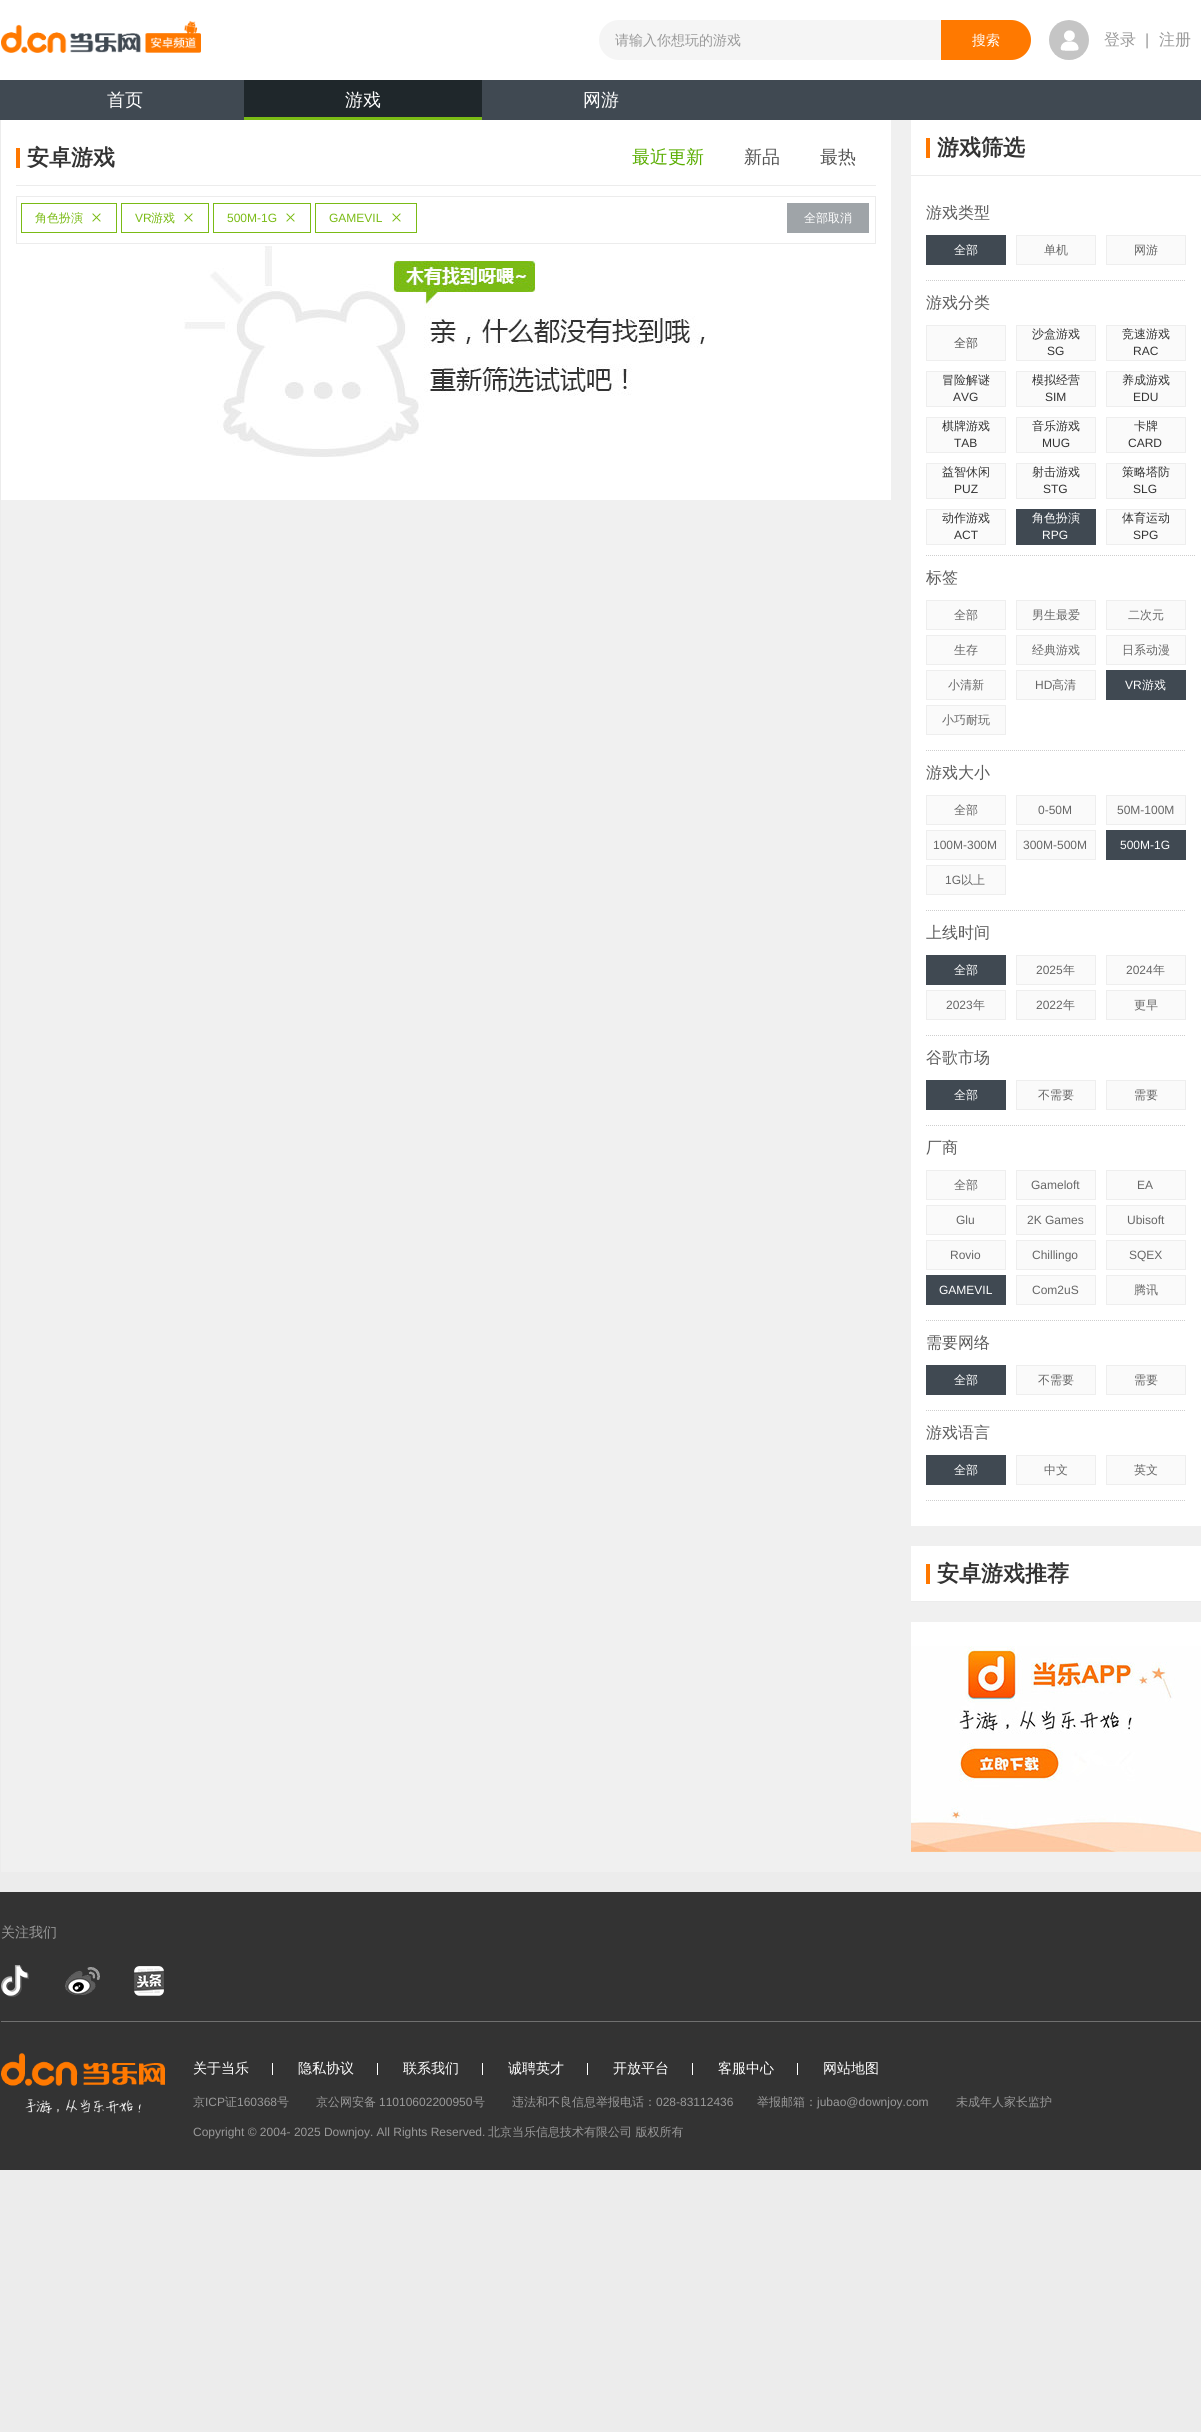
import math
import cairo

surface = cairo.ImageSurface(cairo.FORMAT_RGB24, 1201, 2432)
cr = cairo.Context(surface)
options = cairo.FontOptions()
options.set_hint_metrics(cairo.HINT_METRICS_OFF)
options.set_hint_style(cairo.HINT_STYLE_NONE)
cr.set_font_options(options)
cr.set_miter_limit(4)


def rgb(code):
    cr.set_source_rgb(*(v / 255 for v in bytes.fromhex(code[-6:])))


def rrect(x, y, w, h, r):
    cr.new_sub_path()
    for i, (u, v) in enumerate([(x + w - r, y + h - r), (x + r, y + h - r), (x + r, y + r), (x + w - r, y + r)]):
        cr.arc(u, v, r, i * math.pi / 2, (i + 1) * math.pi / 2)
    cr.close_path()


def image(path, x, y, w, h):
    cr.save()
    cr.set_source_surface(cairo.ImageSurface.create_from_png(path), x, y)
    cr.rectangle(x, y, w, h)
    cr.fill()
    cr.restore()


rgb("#ececec")
cr.paint()
rgb("#ffffff")
cr.rectangle(0, 0, 1201, 80)
cr.fill()
image("img/1.png", 1, 20, 200, 33)
rgb("#f5f5f5")
rrect(599, 20, 432, 40, 20)
cr.fill()
rgb("#ff7900")
cr.new_path()
cr.move_to(941, 20)
cr.line_to(1011, 20)
cr.curve_to(1022, 20, 1031, 29, 1031, 40)
cr.curve_to(1031, 51, 1022, 60, 1011, 60)
cr.line_to(941, 60)
cr.close_path()
cr.fill()
image("img/2.png", 1049, 20, 40, 40)
for x, y, w, h, color in [
    (0, 80, 1201, 40, "#404952"),
    (244, 80, 238, 37, "#1f272b"),
    (244, 117, 238, 3, "#7abb15"),
    (1, 120, 1200, 1752, "#f0f0f0"),
    (1, 120, 890, 380, "#ffffff"),
    (16, 185, 860, 1, "#ececec"),
    (16, 148, 4, 20, "#ff7800"),
]:
    rgb(color)
    cr.rectangle(x, y, w, h)
    cr.fill()
cr.rectangle(16.5, 196.5, 859, 47)
rgb("#ececec")
cr.set_line_width(1)
cr.stroke()
cr.rectangle(21.5, 203.5, 95, 29)
rgb("#7abb15")
cr.stroke()
image("img/3.png", 92, 213, 9, 9)
cr.rectangle(121.5, 203.5, 87, 29)
cr.stroke()
image("img/3.png", 184, 213, 9, 9)
cr.rectangle(213.5, 203.5, 97, 29)
cr.stroke()
image("img/3.png", 286, 213, 9, 9)
cr.rectangle(315.5, 203.5, 101, 29)
cr.stroke()
image("img/3.png", 392, 213, 9, 9)
rgb("#9fa4a8")
cr.rectangle(787, 203, 82, 30)
cr.fill()
image("img/4.png", 184, 246, 521, 211)
for x, y, w, h, color in [
    (911, 120, 290, 1406, "#ffffff"),
    (911, 175, 290, 1, "#ececec"),
    (926, 138, 4, 20, "#ff7800"),
]:
    rgb(color)
    cr.rectangle(x, y, w, h)
    cr.fill()
cr.new_path()
cr.move_to(926, 280.5)
cr.line_to(1186, 280.5)
rgb("#cecece")
cr.set_dash([1, 1])
cr.stroke()
rgb("#404952")
cr.rectangle(926, 235, 80, 30)
cr.fill()
rgb("#fafafa")
cr.rectangle(1016.5, 235.5, 79, 29)
cr.fill_preserve()
rgb("#eeeeee")
cr.set_dash([])
cr.stroke()
rgb("#fafafa")
cr.rectangle(1106.5, 235.5, 79, 29)
cr.fill_preserve()
rgb("#eeeeee")
cr.stroke()
cr.new_path()
cr.move_to(926, 555.5)
cr.line_to(1196, 555.5)
rgb("#cecece")
cr.set_dash([1, 1])
cr.stroke()
rgb("#fafafa")
cr.rectangle(926.5, 325.5, 79, 35)
cr.fill_preserve()
rgb("#eeeeee")
cr.set_dash([])
cr.stroke()
rgb("#fafafa")
cr.rectangle(1016.5, 325.5, 79, 35)
cr.fill_preserve()
rgb("#eeeeee")
cr.stroke()
rgb("#fafafa")
cr.rectangle(1106.5, 325.5, 79, 35)
cr.fill_preserve()
rgb("#eeeeee")
cr.stroke()
rgb("#fafafa")
cr.rectangle(926.5, 371.5, 79, 35)
cr.fill_preserve()
rgb("#eeeeee")
cr.stroke()
rgb("#fafafa")
cr.rectangle(1016.5, 371.5, 79, 35)
cr.fill_preserve()
rgb("#eeeeee")
cr.stroke()
rgb("#fafafa")
cr.rectangle(1106.5, 371.5, 79, 35)
cr.fill_preserve()
rgb("#eeeeee")
cr.stroke()
rgb("#fafafa")
cr.rectangle(926.5, 417.5, 79, 35)
cr.fill_preserve()
rgb("#eeeeee")
cr.stroke()
rgb("#fafafa")
cr.rectangle(1016.5, 417.5, 79, 35)
cr.fill_preserve()
rgb("#eeeeee")
cr.stroke()
rgb("#fafafa")
cr.rectangle(1106.5, 417.5, 79, 35)
cr.fill_preserve()
rgb("#eeeeee")
cr.stroke()
rgb("#fafafa")
cr.rectangle(926.5, 463.5, 79, 35)
cr.fill_preserve()
rgb("#eeeeee")
cr.stroke()
rgb("#fafafa")
cr.rectangle(1016.5, 463.5, 79, 35)
cr.fill_preserve()
rgb("#eeeeee")
cr.stroke()
rgb("#fafafa")
cr.rectangle(1106.5, 463.5, 79, 35)
cr.fill_preserve()
rgb("#eeeeee")
cr.stroke()
rgb("#fafafa")
cr.rectangle(926.5, 509.5, 79, 35)
cr.fill_preserve()
rgb("#eeeeee")
cr.stroke()
rgb("#404952")
cr.rectangle(1016, 509, 80, 36)
cr.fill()
rgb("#fafafa")
cr.rectangle(1106.5, 509.5, 79, 35)
cr.fill_preserve()
rgb("#eeeeee")
cr.stroke()
cr.new_path()
cr.move_to(926, 750.5)
cr.line_to(1186, 750.5)
rgb("#cecece")
cr.set_dash([1, 1])
cr.stroke()
rgb("#fafafa")
cr.rectangle(926.5, 600.5, 79, 29)
cr.fill_preserve()
rgb("#eeeeee")
cr.set_dash([])
cr.stroke()
rgb("#fafafa")
cr.rectangle(1016.5, 600.5, 79, 29)
cr.fill_preserve()
rgb("#eeeeee")
cr.stroke()
rgb("#fafafa")
cr.rectangle(1106.5, 600.5, 79, 29)
cr.fill_preserve()
rgb("#eeeeee")
cr.stroke()
rgb("#fafafa")
cr.rectangle(926.5, 635.5, 79, 29)
cr.fill_preserve()
rgb("#eeeeee")
cr.stroke()
rgb("#fafafa")
cr.rectangle(1016.5, 635.5, 79, 29)
cr.fill_preserve()
rgb("#eeeeee")
cr.stroke()
rgb("#fafafa")
cr.rectangle(1106.5, 635.5, 79, 29)
cr.fill_preserve()
rgb("#eeeeee")
cr.stroke()
rgb("#fafafa")
cr.rectangle(926.5, 670.5, 79, 29)
cr.fill_preserve()
rgb("#eeeeee")
cr.stroke()
rgb("#fafafa")
cr.rectangle(1016.5, 670.5, 79, 29)
cr.fill_preserve()
rgb("#eeeeee")
cr.stroke()
rgb("#404952")
cr.rectangle(1106, 670, 80, 30)
cr.fill()
rgb("#fafafa")
cr.rectangle(926.5, 705.5, 79, 29)
cr.fill_preserve()
rgb("#eeeeee")
cr.stroke()
cr.new_path()
cr.move_to(926, 910.5)
cr.line_to(1186, 910.5)
rgb("#cecece")
cr.set_dash([1, 1])
cr.stroke()
rgb("#fafafa")
cr.rectangle(926.5, 795.5, 79, 29)
cr.fill_preserve()
rgb("#eeeeee")
cr.set_dash([])
cr.stroke()
rgb("#fafafa")
cr.rectangle(1016.5, 795.5, 79, 29)
cr.fill_preserve()
rgb("#eeeeee")
cr.stroke()
rgb("#fafafa")
cr.rectangle(1106.5, 795.5, 79, 29)
cr.fill_preserve()
rgb("#eeeeee")
cr.stroke()
rgb("#fafafa")
cr.rectangle(926.5, 830.5, 79, 29)
cr.fill_preserve()
rgb("#eeeeee")
cr.stroke()
rgb("#fafafa")
cr.rectangle(1016.5, 830.5, 79, 29)
cr.fill_preserve()
rgb("#eeeeee")
cr.stroke()
rgb("#404952")
cr.rectangle(1106, 830, 80, 30)
cr.fill()
rgb("#fafafa")
cr.rectangle(926.5, 865.5, 79, 29)
cr.fill_preserve()
rgb("#eeeeee")
cr.stroke()
cr.new_path()
cr.move_to(926, 1035.5)
cr.line_to(1186, 1035.5)
rgb("#cecece")
cr.set_dash([1, 1])
cr.stroke()
rgb("#404952")
cr.rectangle(926, 955, 80, 30)
cr.fill()
rgb("#fafafa")
cr.rectangle(1016.5, 955.5, 79, 29)
cr.fill_preserve()
rgb("#eeeeee")
cr.set_dash([])
cr.stroke()
rgb("#fafafa")
cr.rectangle(1106.5, 955.5, 79, 29)
cr.fill_preserve()
rgb("#eeeeee")
cr.stroke()
rgb("#fafafa")
cr.rectangle(926.5, 990.5, 79, 29)
cr.fill_preserve()
rgb("#eeeeee")
cr.stroke()
rgb("#fafafa")
cr.rectangle(1016.5, 990.5, 79, 29)
cr.fill_preserve()
rgb("#eeeeee")
cr.stroke()
rgb("#fafafa")
cr.rectangle(1106.5, 990.5, 79, 29)
cr.fill_preserve()
rgb("#eeeeee")
cr.stroke()
cr.new_path()
cr.move_to(926, 1125.5)
cr.line_to(1186, 1125.5)
rgb("#cecece")
cr.set_dash([1, 1])
cr.stroke()
rgb("#404952")
cr.rectangle(926, 1080, 80, 30)
cr.fill()
rgb("#fafafa")
cr.rectangle(1016.5, 1080.5, 79, 29)
cr.fill_preserve()
rgb("#eeeeee")
cr.set_dash([])
cr.stroke()
rgb("#fafafa")
cr.rectangle(1106.5, 1080.5, 79, 29)
cr.fill_preserve()
rgb("#eeeeee")
cr.stroke()
cr.new_path()
cr.move_to(926, 1320.5)
cr.line_to(1186, 1320.5)
rgb("#cecece")
cr.set_dash([1, 1])
cr.stroke()
rgb("#fafafa")
cr.rectangle(926.5, 1170.5, 79, 29)
cr.fill_preserve()
rgb("#eeeeee")
cr.set_dash([])
cr.stroke()
rgb("#fafafa")
cr.rectangle(1016.5, 1170.5, 79, 29)
cr.fill_preserve()
rgb("#eeeeee")
cr.stroke()
rgb("#fafafa")
cr.rectangle(1106.5, 1170.5, 79, 29)
cr.fill_preserve()
rgb("#eeeeee")
cr.stroke()
rgb("#fafafa")
cr.rectangle(926.5, 1205.5, 79, 29)
cr.fill_preserve()
rgb("#eeeeee")
cr.stroke()
rgb("#fafafa")
cr.rectangle(1016.5, 1205.5, 79, 29)
cr.fill_preserve()
rgb("#eeeeee")
cr.stroke()
rgb("#fafafa")
cr.rectangle(1106.5, 1205.5, 79, 29)
cr.fill_preserve()
rgb("#eeeeee")
cr.stroke()
rgb("#fafafa")
cr.rectangle(926.5, 1240.5, 79, 29)
cr.fill_preserve()
rgb("#eeeeee")
cr.stroke()
rgb("#fafafa")
cr.rectangle(1016.5, 1240.5, 79, 29)
cr.fill_preserve()
rgb("#eeeeee")
cr.stroke()
rgb("#fafafa")
cr.rectangle(1106.5, 1240.5, 79, 29)
cr.fill_preserve()
rgb("#eeeeee")
cr.stroke()
rgb("#404952")
cr.rectangle(926, 1275, 80, 30)
cr.fill()
rgb("#fafafa")
cr.rectangle(1016.5, 1275.5, 79, 29)
cr.fill_preserve()
rgb("#eeeeee")
cr.stroke()
rgb("#fafafa")
cr.rectangle(1106.5, 1275.5, 79, 29)
cr.fill_preserve()
rgb("#eeeeee")
cr.stroke()
cr.new_path()
cr.move_to(926, 1410.5)
cr.line_to(1186, 1410.5)
rgb("#cecece")
cr.set_dash([1, 1])
cr.stroke()
rgb("#404952")
cr.rectangle(926, 1365, 80, 30)
cr.fill()
rgb("#fafafa")
cr.rectangle(1016.5, 1365.5, 79, 29)
cr.fill_preserve()
rgb("#eeeeee")
cr.set_dash([])
cr.stroke()
rgb("#fafafa")
cr.rectangle(1106.5, 1365.5, 79, 29)
cr.fill_preserve()
rgb("#eeeeee")
cr.stroke()
cr.new_path()
cr.move_to(926, 1500.5)
cr.line_to(1186, 1500.5)
rgb("#cecece")
cr.set_dash([1, 1])
cr.stroke()
rgb("#404952")
cr.rectangle(926, 1455, 80, 30)
cr.fill()
rgb("#fafafa")
cr.rectangle(1016.5, 1455.5, 79, 29)
cr.fill_preserve()
rgb("#eeeeee")
cr.set_dash([])
cr.stroke()
rgb("#fafafa")
cr.rectangle(1106.5, 1455.5, 79, 29)
cr.fill_preserve()
rgb("#eeeeee")
cr.stroke()
for x, y, w, h, color in [
    (911, 1546, 290, 55, "#ffffff"),
    (911, 1601, 290, 1, "#ececec"),
    (926, 1564, 4, 20, "#ff7800"),
    (911, 1622, 290, 24, "#ffffff"),
]:
    rgb(color)
    cr.rectangle(x, y, w, h)
    cr.fill()
image("img/5.png", 911, 1646, 290, 206)
rgb("#333333")
cr.rectangle(0, 1892, 1201, 278)
cr.fill()
image("img/6.png", 1, 1965, 28, 32)
image("img/7.png", 65, 1967, 35, 28)
image("img/8.png", 134, 1966, 30, 30)
rgb("#707070")
cr.rectangle(1, 2021, 1200, 1)
cr.fill()
image("img/9.png", 1, 2053, 164, 61)
for x, y, w, h, color in [
    (272, 2063, 1, 12, "#ffffff"),
    (377, 2063, 1, 12, "#ffffff"),
    (482, 2063, 1, 12, "#ffffff"),
    (587, 2063, 1, 12, "#ffffff"),
    (692, 2063, 1, 12, "#ffffff"),
    (797, 2063, 1, 12, "#ffffff"),
]:
    rgb(color)
    cr.rectangle(x, y, w, h)
    cr.fill()
cr.select_font_face("WenQuanYi Zen Hei Medium")
cr.set_font_size(14)
rgb("#999999")
cr.move_to(615, 45)
cr.show_text("请输入你想玩的游戏")
rgb("#ffffff")
cr.move_to(972, 45)
cr.show_text("搜索")
cr.set_font_size(16)
rgb("#999999")
cr.move_to(1104, 45)
cr.show_text("登录")
cr.select_font_face("Liberation Sans")
cr.move_to(1145, 45)
cr.show_text("|")
cr.select_font_face("WenQuanYi Zen Hei Medium")
cr.move_to(1159, 45)
cr.show_text("注册")
cr.set_font_size(18)
rgb("#ffffff")
for x, y, s in [
    (107, 106, "首页"),
    (345, 106, "游戏"),
    (583, 106, "网游"),
]:
    cr.move_to(x, y)
    cr.show_text(s)
cr.select_font_face("WenQuanYi Zen Hei", cairo.FONT_SLANT_NORMAL, cairo.FONT_WEIGHT_BOLD)
cr.set_font_size(22)
rgb("#333333")
cr.move_to(27, 165)
cr.show_text("安卓游戏")
cr.select_font_face("WenQuanYi Zen Hei Medium")
cr.set_font_size(18)
rgb("#59ad00")
cr.move_to(632, 163)
cr.show_text("最近更新")
rgb("#555555")
cr.move_to(744, 163)
cr.show_text("新品")
cr.move_to(820, 163)
cr.show_text("最热")
cr.set_font_size(12)
rgb("#7abb15")
cr.move_to(35, 222)
cr.show_text("角色扮演")
cr.select_font_face("Liberation Sans")
cr.move_to(135, 222)
cr.show_text("VR")
cr.select_font_face("WenQuanYi Zen Hei Medium")
cr.move_to(151, 222)
cr.show_text("游戏")
cr.select_font_face("Liberation Sans")
cr.move_to(227, 222)
cr.show_text("500M-1G")
cr.move_to(329, 222)
cr.show_text("GAMEVIL")
cr.select_font_face("WenQuanYi Zen Hei Medium")
rgb("#ffffff")
cr.move_to(804, 222)
cr.show_text("全部取消")
cr.select_font_face("WenQuanYi Zen Hei", cairo.FONT_SLANT_NORMAL, cairo.FONT_WEIGHT_BOLD)
cr.set_font_size(22)
rgb("#333333")
cr.move_to(937, 155)
cr.show_text("游戏筛选")
cr.select_font_face("WenQuanYi Zen Hei Medium")
cr.set_font_size(16)
rgb("#5c5c5c")
cr.move_to(926, 218)
cr.show_text("游戏类型")
cr.set_font_size(12)
rgb("#ffffff")
cr.move_to(954, 254)
cr.show_text("全部")
rgb("#666666")
cr.move_to(1044, 254)
cr.show_text("单机")
cr.move_to(1134, 254)
cr.show_text("网游")
cr.set_font_size(16)
rgb("#5c5c5c")
cr.move_to(926, 308)
cr.show_text("游戏分类")
cr.set_font_size(12)
rgb("#555555")
cr.move_to(954, 347)
cr.show_text("全部")
rgb("#333333")
cr.move_to(1032, 338)
cr.show_text("沙盒游戏")
cr.select_font_face("Liberation Sans")
cr.move_to(1047, 355)
cr.show_text("SG")
cr.select_font_face("WenQuanYi Zen Hei Medium")
cr.move_to(1122, 338)
cr.show_text("竞速游戏")
cr.select_font_face("Liberation Sans")
cr.move_to(1133, 355)
cr.show_text("RAC")
cr.select_font_face("WenQuanYi Zen Hei Medium")
cr.move_to(942, 384)
cr.show_text("冒险解谜")
cr.select_font_face("Liberation Sans")
cr.move_to(953, 401)
cr.show_text("AVG")
cr.select_font_face("WenQuanYi Zen Hei Medium")
cr.move_to(1032, 384)
cr.show_text("模拟经营")
cr.select_font_face("Liberation Sans")
cr.move_to(1045, 401)
cr.show_text("SIM")
cr.select_font_face("WenQuanYi Zen Hei Medium")
cr.move_to(1122, 384)
cr.show_text("养成游戏")
cr.select_font_face("Liberation Sans")
cr.move_to(1133, 401)
cr.show_text("EDU")
cr.select_font_face("WenQuanYi Zen Hei Medium")
cr.move_to(942, 430)
cr.show_text("棋牌游戏")
cr.select_font_face("Liberation Sans")
cr.move_to(954, 447)
cr.show_text("TAB")
cr.select_font_face("WenQuanYi Zen Hei Medium")
cr.move_to(1032, 430)
cr.show_text("音乐游戏")
cr.select_font_face("Liberation Sans")
cr.move_to(1042, 447)
cr.show_text("MUG")
cr.select_font_face("WenQuanYi Zen Hei Medium")
cr.move_to(1134, 430)
cr.show_text("卡牌")
cr.select_font_face("Liberation Sans")
cr.move_to(1128, 447)
cr.show_text("CARD")
cr.select_font_face("WenQuanYi Zen Hei Medium")
cr.move_to(942, 476)
cr.show_text("益智休闲")
cr.select_font_face("Liberation Sans")
cr.move_to(954, 493)
cr.show_text("PUZ")
cr.select_font_face("WenQuanYi Zen Hei Medium")
cr.move_to(1032, 476)
cr.show_text("射击游戏")
cr.select_font_face("Liberation Sans")
cr.move_to(1043, 493)
cr.show_text("STG")
cr.select_font_face("WenQuanYi Zen Hei Medium")
cr.move_to(1122, 476)
cr.show_text("策略塔防")
cr.select_font_face("Liberation Sans")
cr.move_to(1133, 493)
cr.show_text("SLG")
cr.select_font_face("WenQuanYi Zen Hei Medium")
cr.move_to(942, 522)
cr.show_text("动作游戏")
cr.select_font_face("Liberation Sans")
cr.move_to(954, 539)
cr.show_text("ACT")
cr.select_font_face("WenQuanYi Zen Hei Medium")
rgb("#ffffff")
cr.move_to(1032, 522)
cr.show_text("角色扮演")
cr.select_font_face("Liberation Sans")
cr.move_to(1042, 539)
cr.show_text("RPG")
cr.select_font_face("WenQuanYi Zen Hei Medium")
rgb("#333333")
cr.move_to(1122, 522)
cr.show_text("体育运动")
cr.select_font_face("Liberation Sans")
cr.move_to(1133, 539)
cr.show_text("SPG")
cr.select_font_face("WenQuanYi Zen Hei Medium")
cr.set_font_size(16)
rgb("#5c5c5c")
cr.move_to(926, 583)
cr.show_text("标签")
cr.set_font_size(12)
rgb("#666666")
for x, y, s in [
    (954, 619, "全部"),
    (1032, 619, "男生最爱"),
    (1128, 619, "二次元"),
    (954, 654, "生存"),
    (1032, 654, "经典游戏"),
    (1122, 654, "日系动漫"),
    (948, 689, "小清新"),
]:
    cr.move_to(x, y)
    cr.show_text(s)
cr.select_font_face("Liberation Sans")
cr.move_to(1035, 689)
cr.show_text("HD")
cr.select_font_face("WenQuanYi Zen Hei Medium")
cr.move_to(1052, 689)
cr.show_text("高清")
cr.select_font_face("Liberation Sans")
rgb("#ffffff")
cr.move_to(1125, 689)
cr.show_text("VR")
cr.select_font_face("WenQuanYi Zen Hei Medium")
cr.move_to(1142, 689)
cr.show_text("游戏")
rgb("#666666")
cr.move_to(942, 724)
cr.show_text("小巧耐玩")
cr.set_font_size(16)
rgb("#5c5c5c")
cr.move_to(926, 778)
cr.show_text("游戏大小")
cr.set_font_size(12)
rgb("#666666")
cr.move_to(954, 814)
cr.show_text("全部")
cr.select_font_face("Liberation Sans")
for x, y, s in [
    (1038, 814, "0-50M"),
    (1117, 814, "50M-100M"),
    (933, 849, "100M-300M"),
    (1023, 849, "300M-500M"),
]:
    cr.move_to(x, y)
    cr.show_text(s)
rgb("#ffffff")
cr.move_to(1120, 849)
cr.show_text("500M-1G")
rgb("#666666")
cr.move_to(945, 884)
cr.show_text("1G")
cr.select_font_face("WenQuanYi Zen Hei Medium")
cr.move_to(961, 884)
cr.show_text("以上")
cr.set_font_size(16)
rgb("#5c5c5c")
cr.move_to(926, 938)
cr.show_text("上线时间")
cr.set_font_size(12)
rgb("#ffffff")
cr.move_to(954, 974)
cr.show_text("全部")
cr.select_font_face("Liberation Sans")
rgb("#666666")
cr.move_to(1036, 974)
cr.show_text("2025")
cr.select_font_face("WenQuanYi Zen Hei Medium")
cr.move_to(1063, 974)
cr.show_text("年")
cr.select_font_face("Liberation Sans")
cr.move_to(1126, 974)
cr.show_text("2024")
cr.select_font_face("WenQuanYi Zen Hei Medium")
cr.move_to(1153, 974)
cr.show_text("年")
cr.select_font_face("Liberation Sans")
cr.move_to(946, 1009)
cr.show_text("2023")
cr.select_font_face("WenQuanYi Zen Hei Medium")
cr.move_to(973, 1009)
cr.show_text("年")
cr.select_font_face("Liberation Sans")
cr.move_to(1036, 1009)
cr.show_text("2022")
cr.select_font_face("WenQuanYi Zen Hei Medium")
cr.move_to(1063, 1009)
cr.show_text("年")
cr.move_to(1134, 1009)
cr.show_text("更早")
cr.set_font_size(16)
rgb("#5c5c5c")
cr.move_to(926, 1063)
cr.show_text("谷歌市场")
cr.set_font_size(12)
rgb("#ffffff")
cr.move_to(954, 1099)
cr.show_text("全部")
rgb("#666666")
cr.move_to(1038, 1099)
cr.show_text("不需要")
cr.move_to(1134, 1099)
cr.show_text("需要")
cr.set_font_size(16)
rgb("#5c5c5c")
cr.move_to(926, 1153)
cr.show_text("厂商")
cr.set_font_size(12)
rgb("#666666")
cr.move_to(954, 1189)
cr.show_text("全部")
cr.select_font_face("Liberation Sans")
for x, y, s in [
    (1031, 1189, "Gameloft"),
    (1137, 1189, "EA"),
    (956, 1224, "Glu"),
    (1027, 1224, "2K Games"),
    (1127, 1224, "Ubisoft"),
    (950, 1259, "Rovio"),
    (1032, 1259, "Chillingo"),
    (1129, 1259, "SQEX"),
]:
    cr.move_to(x, y)
    cr.show_text(s)
rgb("#ffffff")
cr.move_to(939, 1294)
cr.show_text("GAMEVIL")
rgb("#666666")
cr.move_to(1032, 1294)
cr.show_text("Com2uS")
cr.select_font_face("WenQuanYi Zen Hei Medium")
cr.move_to(1134, 1294)
cr.show_text("腾讯")
cr.set_font_size(16)
rgb("#5c5c5c")
cr.move_to(926, 1348)
cr.show_text("需要网络")
cr.set_font_size(12)
rgb("#ffffff")
cr.move_to(954, 1384)
cr.show_text("全部")
rgb("#666666")
cr.move_to(1038, 1384)
cr.show_text("不需要")
cr.move_to(1134, 1384)
cr.show_text("需要")
cr.set_font_size(16)
rgb("#5c5c5c")
cr.move_to(926, 1438)
cr.show_text("游戏语言")
cr.set_font_size(12)
rgb("#ffffff")
cr.move_to(954, 1474)
cr.show_text("全部")
rgb("#666666")
cr.move_to(1044, 1474)
cr.show_text("中文")
cr.move_to(1134, 1474)
cr.show_text("英文")
cr.select_font_face("WenQuanYi Zen Hei", cairo.FONT_SLANT_NORMAL, cairo.FONT_WEIGHT_BOLD)
cr.set_font_size(22)
rgb("#333333")
cr.move_to(937, 1581)
cr.show_text("安卓游戏推荐")
cr.select_font_face("WenQuanYi Zen Hei Medium")
cr.set_font_size(14)
rgb("#999999")
cr.move_to(1, 1937)
cr.show_text("关注我们")
rgb("#ffffff")
for x, y, s in [
    (193, 2073, "关于当乐"),
    (298, 2073, "隐私协议"),
    (403, 2073, "联系我们"),
    (508, 2073, "诚聘英才"),
    (613, 2073, "开放平台"),
    (718, 2073, "客服中心"),
    (823, 2073, "网站地图"),
]:
    cr.move_to(x, y)
    cr.show_text(s)
cr.set_font_size(12)
rgb("#999999")
cr.move_to(193, 2106)
cr.show_text("京")
cr.select_font_face("Liberation Sans")
cr.move_to(205, 2106)
cr.show_text("ICP")
cr.select_font_face("WenQuanYi Zen Hei Medium")
cr.move_to(225, 2106)
cr.show_text("证")
cr.select_font_face("Liberation Sans")
cr.move_to(237, 2106)
cr.show_text("160368")
cr.select_font_face("WenQuanYi Zen Hei Medium")
cr.move_to(277, 2106)
cr.show_text("号")
cr.move_to(316, 2106)
cr.show_text("京公网安备")
cr.select_font_face("Liberation Sans")
cr.move_to(379, 2106)
cr.show_text("11010602200950")
cr.select_font_face("WenQuanYi Zen Hei Medium")
cr.move_to(473, 2106)
cr.show_text("号")
cr.move_to(512, 2106)
cr.show_text("违法和不良信息举报电话：")
cr.select_font_face("Liberation Sans")
cr.move_to(656, 2106)
cr.show_text("028-83112436")
cr.select_font_face("WenQuanYi Zen Hei Medium")
cr.move_to(757, 2106)
cr.show_text("举报邮箱：")
cr.select_font_face("Liberation Sans")
cr.move_to(817, 2106)
cr.show_text("jubao@downjoy.com")
cr.select_font_face("WenQuanYi Zen Hei Medium")
cr.move_to(956, 2106)
cr.show_text("未成年人家长监护")
cr.select_font_face("Liberation Sans")
cr.move_to(193, 2136)
cr.show_text("Copyright © 2004- 2025 Downjoy. All Rights Reserved.")
cr.select_font_face("WenQuanYi Zen Hei Medium")
cr.move_to(488, 2136)
cr.show_text("北京当乐信息技术有限公司 版权所有")
surface.write_to_png("page.png")
